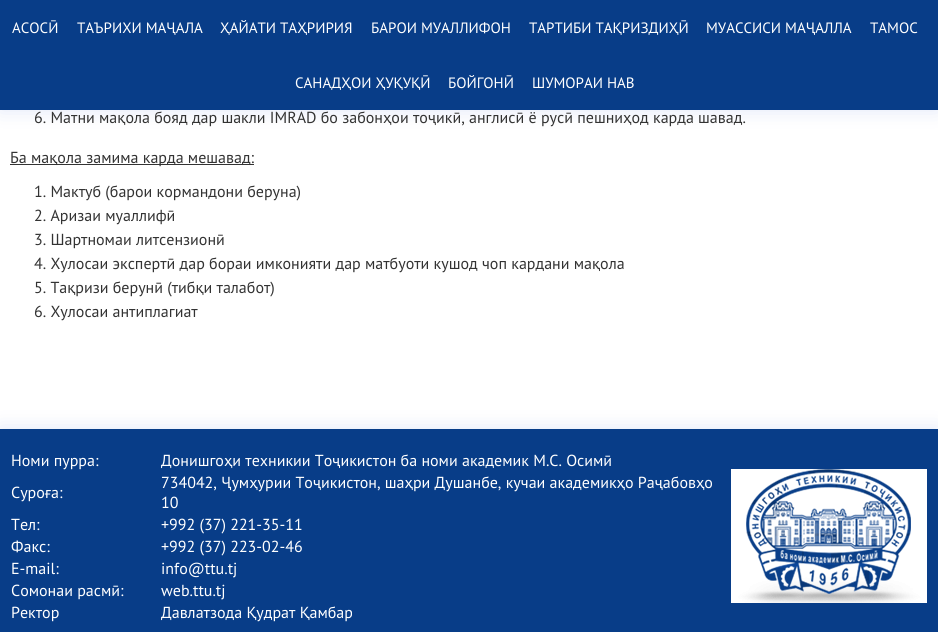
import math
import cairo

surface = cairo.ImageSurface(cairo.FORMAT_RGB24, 938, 632)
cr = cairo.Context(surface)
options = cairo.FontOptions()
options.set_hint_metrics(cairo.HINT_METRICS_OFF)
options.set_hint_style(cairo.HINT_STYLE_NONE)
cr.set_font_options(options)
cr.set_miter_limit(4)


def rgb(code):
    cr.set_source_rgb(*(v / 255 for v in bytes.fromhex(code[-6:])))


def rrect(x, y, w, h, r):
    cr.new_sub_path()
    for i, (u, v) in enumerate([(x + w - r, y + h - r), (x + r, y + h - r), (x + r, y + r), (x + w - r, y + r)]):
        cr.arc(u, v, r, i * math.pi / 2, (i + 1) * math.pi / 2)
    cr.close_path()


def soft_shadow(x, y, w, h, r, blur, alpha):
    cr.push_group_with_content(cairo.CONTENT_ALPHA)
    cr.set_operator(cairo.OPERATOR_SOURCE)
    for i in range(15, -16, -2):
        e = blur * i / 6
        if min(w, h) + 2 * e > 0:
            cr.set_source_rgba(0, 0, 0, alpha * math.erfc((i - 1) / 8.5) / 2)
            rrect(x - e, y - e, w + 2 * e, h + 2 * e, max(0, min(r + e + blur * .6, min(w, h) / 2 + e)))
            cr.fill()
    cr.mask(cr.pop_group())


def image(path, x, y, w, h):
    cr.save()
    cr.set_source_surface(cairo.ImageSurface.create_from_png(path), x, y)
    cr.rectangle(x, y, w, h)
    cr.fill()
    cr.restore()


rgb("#ffffff")
cr.paint()
rgb("#889fe5")
soft_shadow(0, 0, 938, 110, 0, 10, 0.25)
rgb("#083d88")
cr.rectangle(0, 0, 938, 110)
cr.fill()
rgb("#333333")
cr.rectangle(10, 164, 244, 1)
cr.fill()
rgb("#889fe5")
soft_shadow(0, 429, 938, 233, 0, 10, 0.25)
rgb("#083d88")
cr.rectangle(0, 429, 938, 203)
cr.fill()
image("img/1.png", 731, 469, 196, 134)
cr.select_font_face("PT Sans")
cr.set_font_size(15)
rgb("#ffffff")
for x, y, s in [
    (12, 33, "АСОСӢ"),
    (77, 33, "ТАЪРИХИ МАҶАЛА"),
    (220, 33, "ҲАЙАТИ ТАҲРИРИЯ"),
    (371, 33, "БАРОИ МУАЛЛИФОН"),
    (529, 33, "ТАРТИБИ ТАҚРИЗДИҲӢ"),
    (706, 33, "МУАССИСИ МАҶАЛЛА"),
    (870, 33, "ТАМОС"),
    (295, 88, "САНАДҲОИ ҲУҚУҚӢ"),
    (448, 88, "БОЙГОНӢ"),
    (532, 88, "ШУМОРАИ НАВ"),
]:
    cr.move_to(x, y)
    cr.show_text(s)
cr.set_font_size(16)
rgb("#333333")
for x, y, s in [
    (34, 123, "6. Матни мақола бояд дар шакли IMRAD бо забонҳои тоҷикӣ, англисӣ ё русӣ пешниҳод карда шавад."),
    (10, 163, "Ба мақола замима карда мешавад:"),
    (34, 197, "1. Мактуб (барои кормандони беруна)"),
    (34, 221, "2. Аризаи муаллифӣ"),
    (34, 245, "3. Шартномаи литсензионӣ"),
    (34, 269, "4. Хулосаи экспертӣ дар бораи имконияти дар матбуоти кушод чоп кардани мақола"),
    (34, 293, "5. Тақризи берунӣ (тибқи талабот)"),
    (34, 317, "6. Хулосаи антиплагиат"),
]:
    cr.move_to(x, y)
    cr.show_text(s)
rgb("#ffffff")
for x, y, s in [
    (11, 466, "Номи пурра:"),
    (161, 466, "Донишгоҳи техникии Тоҷикистон ба номи академик М.С. Осимӣ"),
    (11, 498, "Суроға:"),
    (161, 488, "734042, Ҷумҳурии Тоҷикистон, шаҳри Душанбе, кучаи академикҳо Раҷабовҳо"),
    (161, 508, "10"),
    (11, 530, "Тел:"),
    (161, 530, "+992 (37) 221-35-11"),
    (11, 552, "Факс:"),
    (161, 552, "+992 (37) 223-02-46"),
    (11, 574, "E-mail:"),
    (161, 574, "info@ttu.tj"),
    (11, 596, "Сомонаи расмӣ:"),
    (161, 596, "web.ttu.tj"),
    (11, 618, "Ректор"),
    (161, 618, "Давлатзода Қудрат Қамбар"),
]:
    cr.move_to(x, y)
    cr.show_text(s)
surface.write_to_png("page.png")
